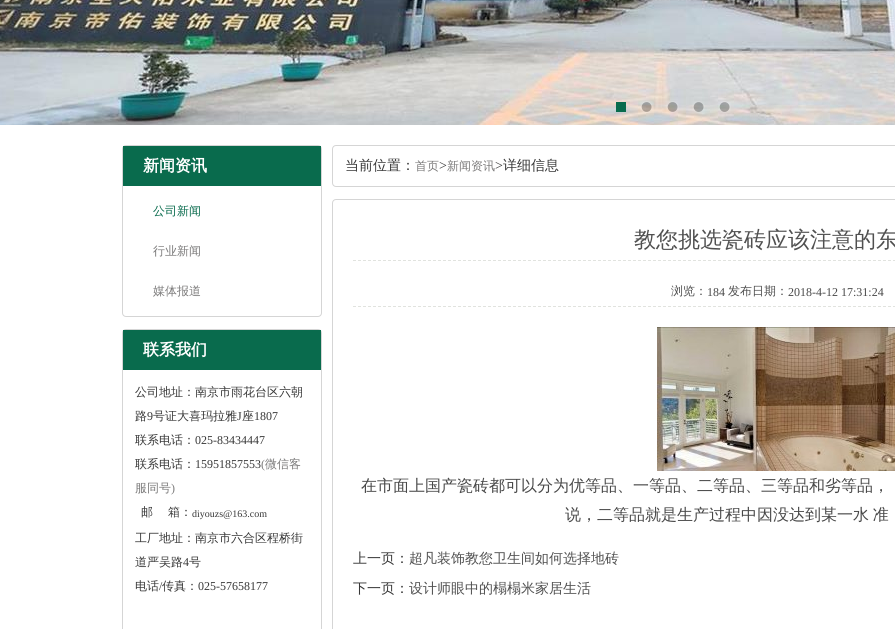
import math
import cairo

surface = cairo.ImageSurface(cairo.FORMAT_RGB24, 895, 629)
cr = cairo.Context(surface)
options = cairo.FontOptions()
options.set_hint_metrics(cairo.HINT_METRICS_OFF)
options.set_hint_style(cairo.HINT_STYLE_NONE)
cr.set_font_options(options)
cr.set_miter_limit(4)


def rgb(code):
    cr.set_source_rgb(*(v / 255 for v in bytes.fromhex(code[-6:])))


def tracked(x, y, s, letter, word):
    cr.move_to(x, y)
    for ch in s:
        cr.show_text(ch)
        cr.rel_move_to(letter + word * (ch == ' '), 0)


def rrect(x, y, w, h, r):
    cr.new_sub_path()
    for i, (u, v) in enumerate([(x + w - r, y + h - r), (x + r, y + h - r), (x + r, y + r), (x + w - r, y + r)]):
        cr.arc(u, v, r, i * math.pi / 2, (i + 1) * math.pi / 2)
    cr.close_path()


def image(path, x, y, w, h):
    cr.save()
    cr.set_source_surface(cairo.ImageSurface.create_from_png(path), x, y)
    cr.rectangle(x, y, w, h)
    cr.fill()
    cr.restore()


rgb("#ffffff")
cr.paint()
image("img/1.png", 0, 0, 895, 125)
rgb("#096b4d")
cr.rectangle(616, 102, 10, 10)
cr.fill()
image("img/2.png", 640, 101, 13, 12)
image("img/3.png", 666, 101, 13, 12)
image("img/4.png", 692, 101, 13, 12)
image("img/5.png", 718, 101, 13, 12)
rrect(122.5, 145.5, 199, 171, 3.5)
rgb("#d5d5d5")
cr.set_line_width(1)
cr.stroke()
rgb("#096b4d")
cr.rectangle(123, 146, 198, 40)
cr.fill()
rrect(122.5, 329.5, 199, 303, 3.5)
rgb("#d5d5d5")
cr.stroke()
rgb("#096b4d")
cr.rectangle(123, 330, 198, 40)
cr.fill()
rrect(332.5, 145.5, 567, 41, 3.5)
rgb("#d5d5d5")
cr.stroke()
rrect(332.5, 199.5, 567, 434, 3.5)
cr.stroke()
cr.new_path()
cr.move_to(353, 260.5)
cr.line_to(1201, 260.5)
rgb("#e1e3df")
cr.set_dash([3, 2])
cr.stroke()
cr.new_path()
cr.move_to(353, 306.5)
cr.line_to(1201, 306.5)
cr.stroke()
image("img/6.png", 657, 327, 238, 144)
cr.select_font_face("WenQuanYi Zen Hei", cairo.FONT_SLANT_NORMAL, cairo.FONT_WEIGHT_BOLD)
cr.set_font_size(16)
rgb("#ffffff")
cr.move_to(143, 171)
cr.show_text("新闻资讯")
cr.select_font_face("WenQuanYi Zen Hei Medium")
cr.set_font_size(12)
rgb("#096b4d")
cr.move_to(153, 215)
cr.show_text("公司新闻")
rgb("#7b7a7a")
cr.move_to(153, 255)
cr.show_text("行业新闻")
cr.move_to(153, 295)
cr.show_text("媒体报道")
cr.select_font_face("WenQuanYi Zen Hei", cairo.FONT_SLANT_NORMAL, cairo.FONT_WEIGHT_BOLD)
cr.set_font_size(16)
rgb("#ffffff")
cr.move_to(143, 355)
cr.show_text("联系我们")
cr.select_font_face("WenQuanYi Zen Hei Medium")
cr.set_font_size(12)
rgb("#373737")
cr.move_to(135, 396)
cr.show_text("公司地址：南京市雨花台区六朝")
cr.move_to(135, 420)
cr.show_text("路")
cr.select_font_face("Liberation Serif")
cr.move_to(147, 420)
cr.show_text("9")
cr.select_font_face("WenQuanYi Zen Hei Medium")
cr.move_to(153, 420)
cr.show_text("号证大喜玛拉雅")
cr.select_font_face("Liberation Serif")
cr.move_to(237, 420)
cr.show_text("J")
cr.select_font_face("WenQuanYi Zen Hei Medium")
cr.move_to(242, 420)
cr.show_text("座")
cr.select_font_face("Liberation Serif")
cr.move_to(254, 420)
cr.show_text("1807")
cr.select_font_face("WenQuanYi Zen Hei Medium")
cr.move_to(135, 444)
cr.show_text("联系电话：")
cr.select_font_face("Liberation Serif")
cr.move_to(195, 444)
cr.show_text("025-83434447")
cr.select_font_face("WenQuanYi Zen Hei Medium")
cr.move_to(135, 468)
cr.show_text("联系电话：")
cr.select_font_face("Liberation Serif")
cr.move_to(195, 468)
cr.show_text("15951857553")
rgb("#7b7a7a")
cr.move_to(261, 468)
cr.show_text("(")
cr.select_font_face("WenQuanYi Zen Hei Medium")
cr.move_to(265, 468)
cr.show_text("微信客")
cr.move_to(135, 492)
cr.show_text("服同号")
cr.select_font_face("Liberation Serif")
cr.move_to(171, 492)
cr.show_text(")")
cr.select_font_face("WenQuanYi Zen Hei Medium")
rgb("#373737")
cr.move_to(141, 516)
cr.show_text("邮")
cr.move_to(168, 516)
cr.show_text("箱：")
cr.select_font_face("Liberation Serif")
cr.set_font_size(10)
cr.move_to(192, 517)
cr.show_text("diyouzs@163.com")
cr.select_font_face("WenQuanYi Zen Hei Medium")
cr.set_font_size(12)
cr.move_to(135, 542)
cr.show_text("工厂地址：南京市六合区程桥街")
cr.move_to(135, 566)
cr.show_text("道严吴路")
cr.select_font_face("Liberation Serif")
cr.move_to(183, 566)
cr.show_text("4")
cr.select_font_face("WenQuanYi Zen Hei Medium")
cr.move_to(189, 566)
cr.show_text("号")
cr.move_to(135, 590)
cr.show_text("电话")
cr.select_font_face("Liberation Serif")
cr.move_to(159, 590)
cr.show_text("/")
cr.select_font_face("WenQuanYi Zen Hei Medium")
cr.move_to(162, 590)
cr.show_text("传真：")
cr.select_font_face("Liberation Serif")
cr.move_to(198, 590)
cr.show_text("025-57658177")
cr.select_font_face("WenQuanYi Zen Hei Medium")
cr.set_font_size(14)
cr.move_to(345, 170)
cr.show_text("当前位置：")
cr.set_font_size(12)
rgb("#7b7a7a")
cr.move_to(415, 170)
cr.show_text("首页")
cr.select_font_face("Liberation Serif")
cr.set_font_size(14)
rgb("#373737")
cr.move_to(439, 170)
cr.show_text(">")
cr.select_font_face("WenQuanYi Zen Hei Medium")
cr.set_font_size(12)
rgb("#7b7a7a")
cr.move_to(447, 170)
cr.show_text("新闻资讯")
cr.select_font_face("Liberation Serif")
cr.set_font_size(14)
rgb("#373737")
cr.move_to(495, 170)
cr.show_text(">")
cr.select_font_face("WenQuanYi Zen Hei Medium")
cr.move_to(503, 170)
cr.show_text("详细信息")
cr.set_font_size(22)
rgb("#505050")
cr.move_to(634, 247)
cr.show_text("教您挑选瓷砖应该注意的东")
cr.set_font_size(12)
cr.move_to(671, 295)
cr.show_text("浏览：")
cr.select_font_face("Liberation Serif")
rgb("#484848")
cr.move_to(707, 296)
cr.show_text("184")
cr.select_font_face("WenQuanYi Zen Hei Medium")
rgb("#505050")
cr.move_to(728, 295)
cr.show_text("发布日期：")
cr.select_font_face("Liberation Serif")
rgb("#484848")
cr.move_to(788, 296)
cr.show_text("2018-4-12 17:31:24")
cr.select_font_face("WenQuanYi Zen Hei Medium")
cr.set_font_size(16)
cr.move_to(361, 491)
cr.show_text("在市面上国产瓷砖都可以分为优等品、一等品、二等品、三等品和劣等品，")
tracked(565, 520, "说，二等品就是生产过程中因没达到某一水 准", 0, -1)
cr.set_font_size(14)
rgb("#373737")
cr.move_to(353, 563)
cr.show_text("上一页：")
rgb("#505050")
cr.move_to(409, 563)
cr.show_text("超凡装饰教您卫生间如何选择地砖")
rgb("#373737")
cr.move_to(353, 593)
cr.show_text("下一页：")
rgb("#505050")
cr.move_to(409, 593)
cr.show_text("设计师眼中的榻榻米家居生活")
surface.write_to_png("page.png")
